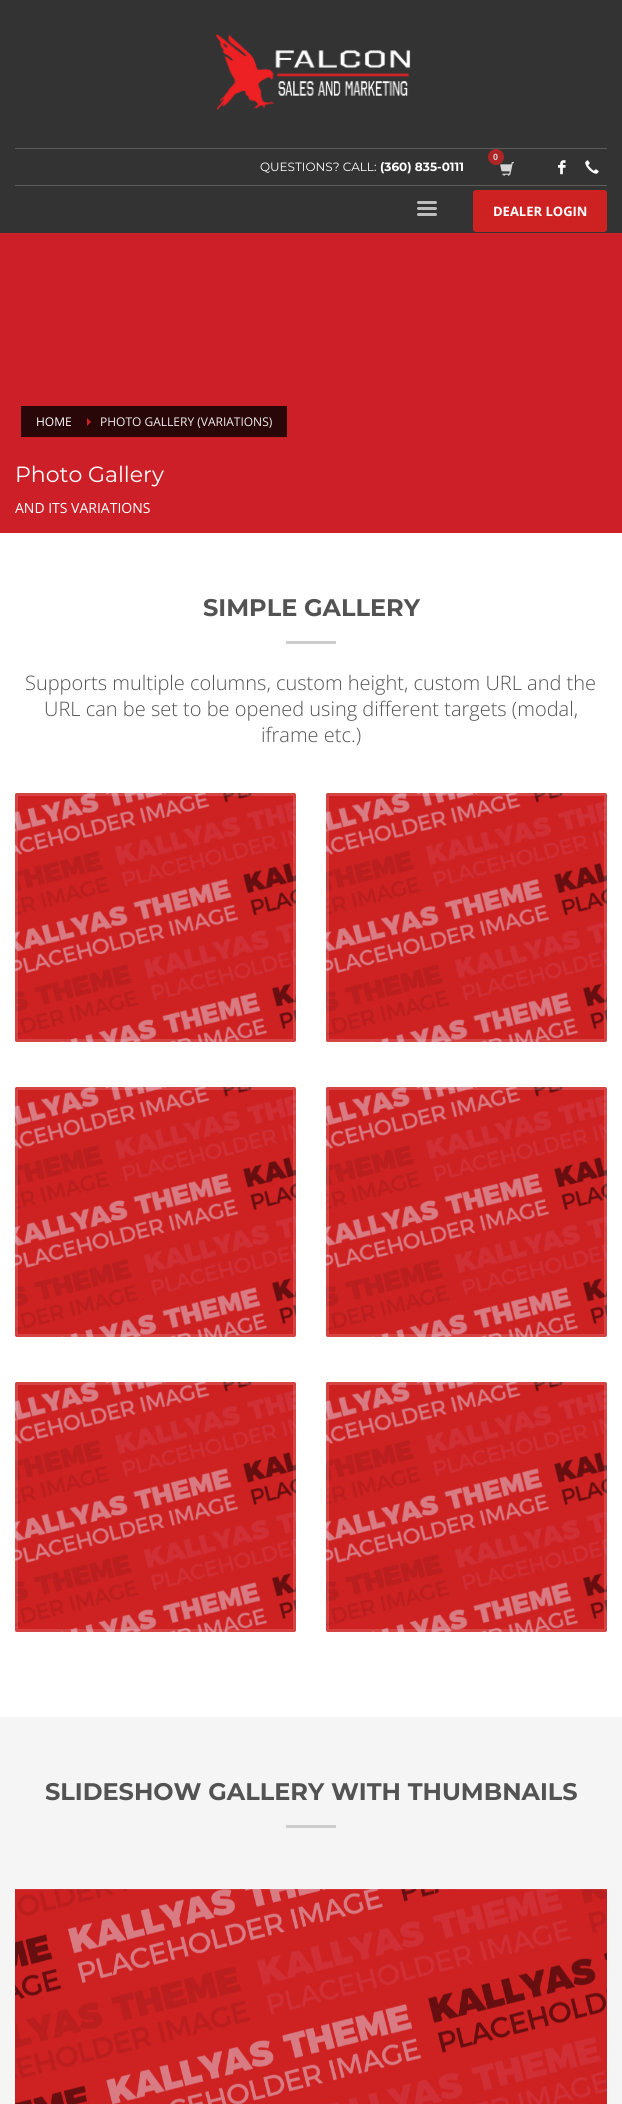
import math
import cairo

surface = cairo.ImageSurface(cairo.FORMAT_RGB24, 622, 2104)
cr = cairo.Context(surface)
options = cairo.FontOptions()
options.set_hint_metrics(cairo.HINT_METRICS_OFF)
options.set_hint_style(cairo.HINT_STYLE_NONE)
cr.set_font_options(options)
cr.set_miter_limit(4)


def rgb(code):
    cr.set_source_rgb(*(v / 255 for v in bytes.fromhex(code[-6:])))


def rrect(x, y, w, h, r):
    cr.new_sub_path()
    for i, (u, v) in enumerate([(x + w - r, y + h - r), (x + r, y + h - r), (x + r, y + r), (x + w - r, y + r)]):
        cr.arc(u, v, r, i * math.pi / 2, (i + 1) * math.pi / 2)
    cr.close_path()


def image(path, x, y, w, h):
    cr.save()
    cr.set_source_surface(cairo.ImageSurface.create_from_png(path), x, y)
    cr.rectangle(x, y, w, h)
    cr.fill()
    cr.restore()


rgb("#f5f5f5")
cr.paint()
rgb("#333333")
cr.rectangle(0, 0, 622, 233)
cr.fill()
image("img/1.png", 215, 34, 196, 77)
rgb("#5c5c5c")
cr.rectangle(15, 148, 592, 1)
cr.fill()
image("img/2.png", 500, 162, 14, 14)
rgb("#ae2525")
cr.arc(496, 157, 8, 0, 2 * math.pi)
cr.fill()
image("img/3.png", 558, 160, 8, 15)
image("img/4.png", 585, 160, 14, 14)
rgb("#5c5c5c")
cr.rectangle(15, 185, 592, 1)
cr.fill()
rgb("#bebebe")
rrect(417, 201, 20, 3, 1.5)
cr.fill()
rrect(417, 207, 20, 3, 1.5)
cr.fill()
rrect(417, 213, 20, 3, 1.5)
cr.fill()
rgb("#cd2122")
rrect(473, 190, 134, 42, 3)
cr.fill()
rgb("#cc1f28")
cr.rectangle(0, 233, 622, 300)
cr.fill()
rgb("#290608")
cr.rectangle(21, 406, 266, 31)
cr.fill()
rgb("#cd2122")
cr.new_path()
cr.move_to(87, 426)
cr.line_to(87, 418)
cr.line_to(91, 422)
cr.close_path()
cr.fill()
rgb("#ffffff")
cr.rectangle(0, 533, 622, 1184)
cr.fill()
rgb("#cccccc")
cr.rectangle(286, 641, 50, 3)
cr.fill()
image("img/5.png", 15, 793, 281, 249)
rrect(16.5, 794.5, 278, 246, 1.5)
cr.set_source_rgba(1, 1, 1, 0.15)
cr.set_line_width(3)
cr.stroke()
image("img/6.png", 326, 793, 281, 249)
rrect(327.5, 794.5, 278, 246, 1.5)
cr.stroke()
image("img/7.png", 15, 1087, 281, 250)
rrect(16.5, 1088.5, 278, 247, 1.5)
cr.stroke()
image("img/8.png", 326, 1087, 281, 250)
rrect(327.5, 1088.5, 278, 247, 1.5)
cr.stroke()
image("img/9.png", 15, 1382, 281, 250)
rrect(16.5, 1383.5, 278, 247, 1.5)
cr.stroke()
image("img/10.png", 326, 1382, 281, 250)
rrect(327.5, 1383.5, 278, 247, 1.5)
cr.stroke()
rgb("#cccccc")
cr.rectangle(286, 1825, 50, 3)
cr.fill()
image("img/11.png", 15, 1889, 592, 215)
cr.select_font_face("Liberation Sans", cairo.FONT_SLANT_NORMAL, cairo.FONT_WEIGHT_BOLD)
cr.set_font_size(9)
rgb("#d6d6d6")
cr.move_to(493, 160)
cr.show_text("0")
cr.select_font_face("Montserrat")
cr.set_font_size(12)
rgb("#ffffff")
cr.move_to(260, 171)
cr.show_text("QUESTIONS? CALL:")
cr.select_font_face("Montserrat", cairo.FONT_SLANT_NORMAL, cairo.FONT_WEIGHT_BOLD)
cr.move_to(380, 171)
cr.show_text("(360) 835-0111")
cr.select_font_face("Open Sans", cairo.FONT_SLANT_NORMAL, cairo.FONT_WEIGHT_BOLD)
cr.set_font_size(13)
cr.move_to(493, 216)
cr.show_text("DEALER LOGIN")
cr.select_font_face("Open Sans")
cr.set_font_size(12)
cr.move_to(36, 426)
cr.show_text("HOME")
rgb("#eeeeee")
cr.move_to(100, 426)
cr.show_text("PHOTO GALLERY (VARIATIONS)")
cr.select_font_face("Montserrat")
cr.set_font_size(22)
rgb("#ffffff")
cr.move_to(15, 482)
cr.show_text("Photo Gallery")
cr.select_font_face("Open Sans")
cr.set_font_size(14)
cr.move_to(15, 513)
cr.show_text("AND ITS VARIATIONS")
cr.select_font_face("Montserrat", cairo.FONT_SLANT_NORMAL, cairo.FONT_WEIGHT_BOLD)
cr.set_font_size(24)
rgb("#535353")
cr.move_to(203, 616)
cr.show_text("SIMPLE GALLERY")
cr.select_font_face("Open Sans Light")
cr.set_font_size(20)
for x, y, s in [
    (25, 690, "Supports multiple columns, custom height, custom URL and the"),
    (44, 716, "URL can be set to be opened using different targets (modal,"),
    (261, 742, "iframe etc.)"),
]:
    cr.move_to(x, y)
    cr.show_text(s)
cr.select_font_face("Montserrat", cairo.FONT_SLANT_NORMAL, cairo.FONT_WEIGHT_BOLD)
cr.set_font_size(24)
cr.move_to(45, 1800)
cr.show_text("SLIDESHOW GALLERY WITH THUMBNAILS")
surface.write_to_png("page.png")
